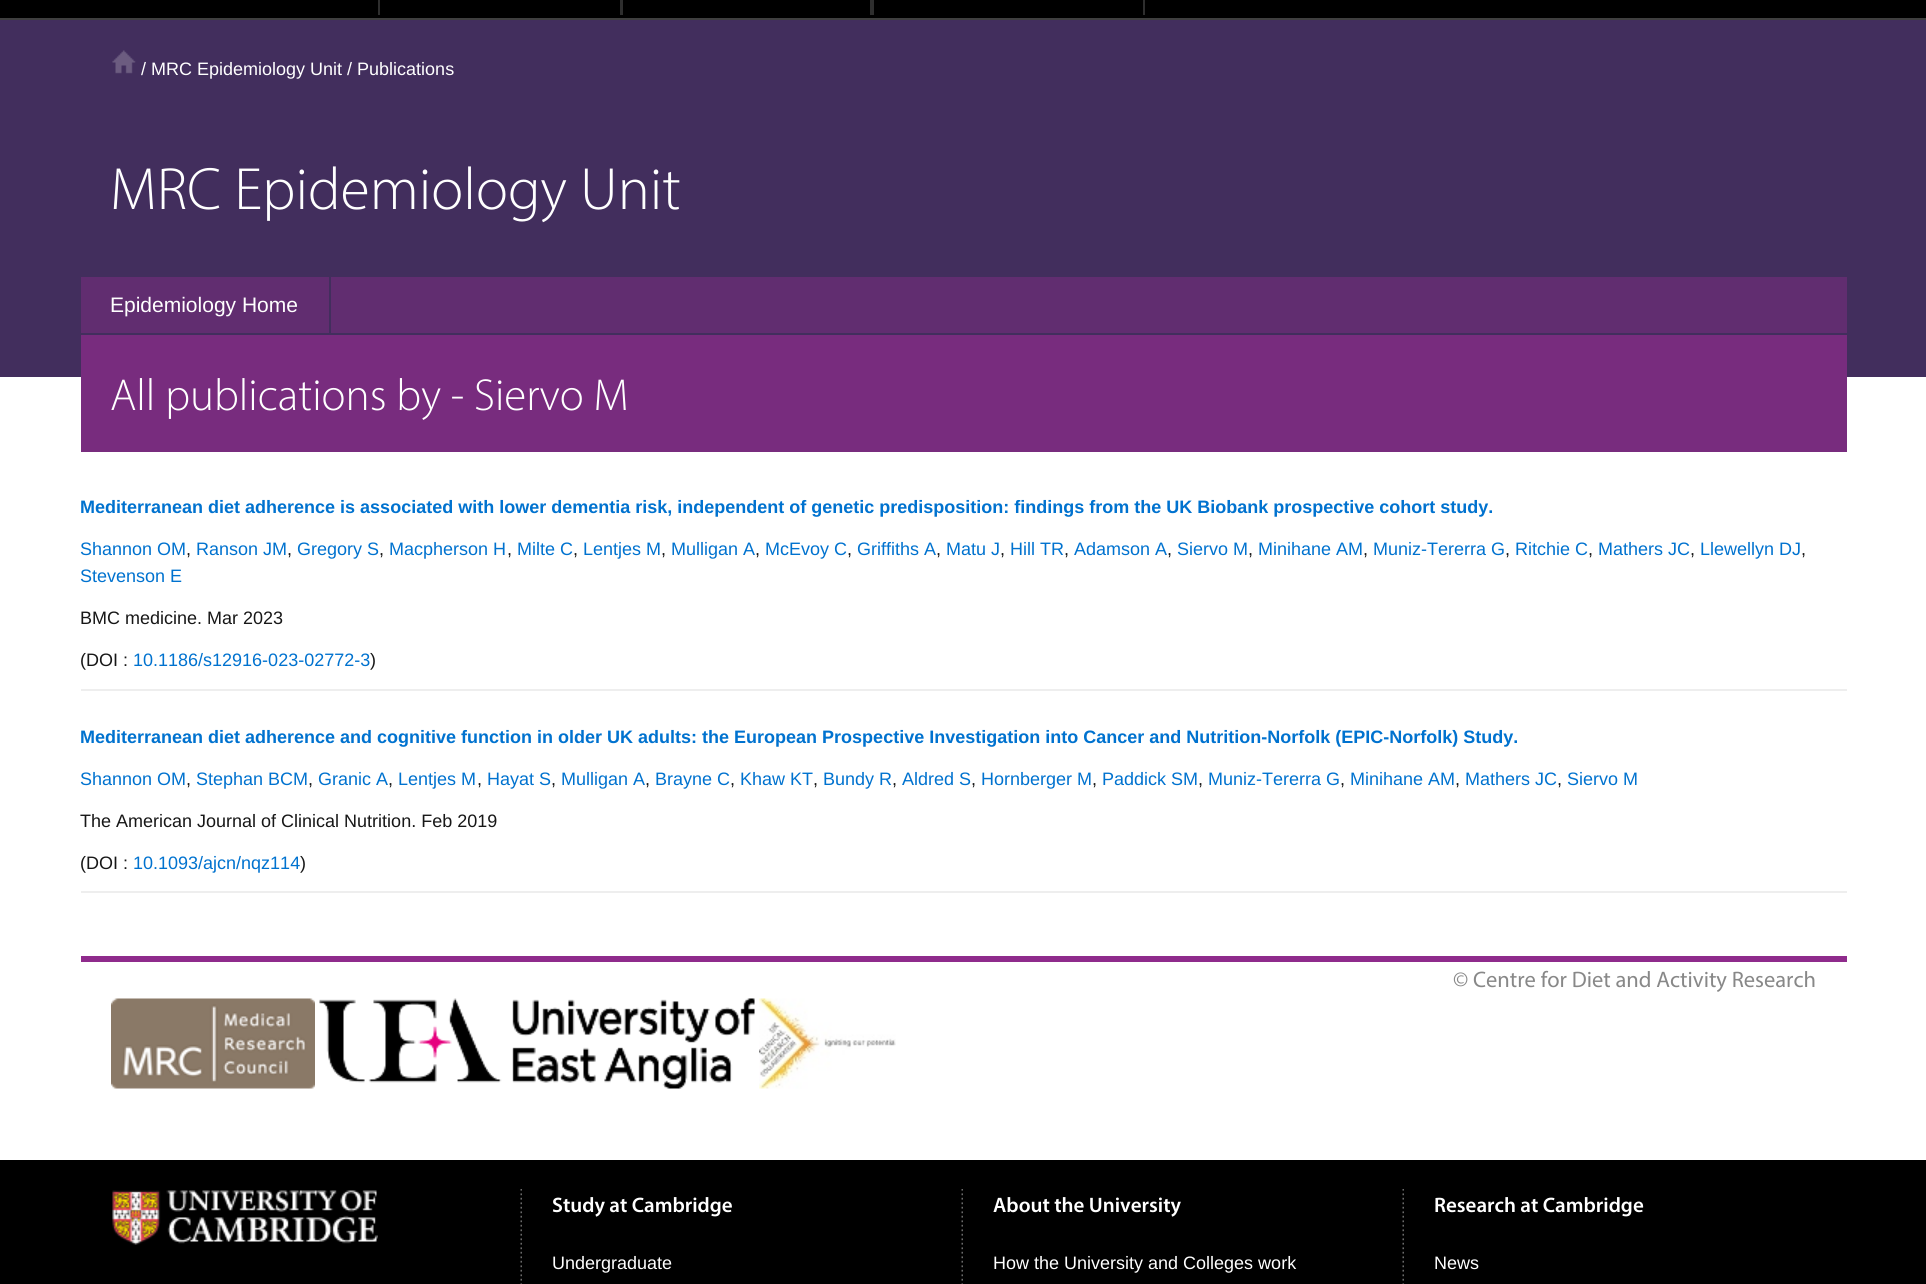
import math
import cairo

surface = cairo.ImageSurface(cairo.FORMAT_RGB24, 1926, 1284)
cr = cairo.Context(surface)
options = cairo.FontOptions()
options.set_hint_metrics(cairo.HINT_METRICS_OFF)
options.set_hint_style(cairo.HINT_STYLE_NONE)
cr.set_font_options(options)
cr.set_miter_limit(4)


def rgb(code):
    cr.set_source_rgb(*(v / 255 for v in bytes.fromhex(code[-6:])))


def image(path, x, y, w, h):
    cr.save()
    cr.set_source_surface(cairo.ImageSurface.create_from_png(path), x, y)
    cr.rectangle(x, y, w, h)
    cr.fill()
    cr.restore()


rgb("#ffffff")
cr.paint()
for x, y, w, h, color in [
    (0, 0, 1926, 18, "#000000"),
    (620, 0, 3, 15, "#2e2e2e"),
    (378, 0, 2, 15, "#2e2e2e"),
    (870, 0, 4, 15, "#2e2e2e"),
    (1143, 0, 2, 15, "#2e2e2e"),
    (0, 18, 1926, 2, "#3f3f3f"),
    (0, 20, 1926, 357, "#422e5d"),
]:
    rgb(color)
    cr.rectangle(x, y, w, h)
    cr.fill()
image("img/1.png", 112, 50, 24, 24)
for x, y, w, h, color in [
    (81, 277, 1766, 56, "#612d70"),
    (329, 276, 2, 57, "#422e5d"),
    (81, 335, 1766, 117, "#782c7e"),
    (81, 689, 1766, 2, "#eeeeee"),
    (81, 891, 1766, 2, "#eeeeee"),
    (81, 956, 1766, 6, "#8f2b8c"),
]:
    rgb(color)
    cr.rectangle(x, y, w, h)
    cr.fill()
image("img/2.png", 111, 998, 204, 91)
image("img/3.png", 319, 998, 436, 91)
image("img/4.png", 759, 998, 137, 91)
rgb("#000000")
cr.rectangle(0, 1160, 1926, 124)
cr.fill()
image("img/5.png", 520, 1189, 2, 95)
image("img/6.png", 112, 1190, 266, 55)
image("img/5.png", 961, 1189, 2, 95)
image("img/5.png", 1402, 1189, 2, 95)
cr.select_font_face("Liberation Sans")
cr.set_font_size(18)
rgb("#ffffff")
cr.move_to(141, 75)
cr.show_text("/ MRC Epidemiology Unit / Publications")
cr.select_font_face("Myriad Light")
cr.set_font_size(60)
cr.move_to(110, 209)
cr.show_text("MRC Epidemiology Unit")
cr.select_font_face("Liberation Sans")
cr.set_font_size(21)
cr.move_to(110, 312)
cr.show_text("Epidemiology Home")
cr.select_font_face("Myriad Light")
cr.set_font_size(45)
cr.move_to(110, 410)
cr.show_text("All publications by - Siervo M")
cr.select_font_face("Liberation Sans", cairo.FONT_SLANT_NORMAL, cairo.FONT_WEIGHT_BOLD)
cr.set_font_size(18)
rgb("#0072cf")
cr.move_to(80, 513)
cr.show_text("Mediterranean diet adherence is associated with lower dementia risk, independent of genetic predisposition: findings from the UK Biobank prospective cohort study.")
cr.select_font_face("Liberation Sans")
cr.move_to(80, 555)
cr.show_text("Shannon OM")
rgb("#171717")
cr.move_to(186, 555)
cr.show_text(",")
rgb("#0072cf")
cr.move_to(196, 555)
cr.show_text("Ranson JM")
rgb("#171717")
cr.move_to(287, 555)
cr.show_text(",")
rgb("#0072cf")
cr.move_to(297, 555)
cr.show_text("Gregory S")
rgb("#171717")
cr.move_to(379, 555)
cr.show_text(",")
rgb("#0072cf")
cr.move_to(389, 555)
cr.show_text("Macpherson H")
rgb("#171717")
cr.move_to(507, 555)
cr.show_text(",")
rgb("#0072cf")
cr.move_to(517, 555)
cr.show_text("Milte C")
rgb("#171717")
cr.move_to(573, 555)
cr.show_text(",")
rgb("#0072cf")
cr.move_to(583, 555)
cr.show_text("Lentjes M")
rgb("#171717")
cr.move_to(661, 555)
cr.show_text(",")
rgb("#0072cf")
cr.move_to(671, 555)
cr.show_text("Mulligan A")
rgb("#171717")
cr.move_to(755, 555)
cr.show_text(",")
rgb("#0072cf")
cr.move_to(765, 555)
cr.show_text("McEvoy C")
rgb("#171717")
cr.move_to(847, 555)
cr.show_text(",")
rgb("#0072cf")
cr.move_to(857, 555)
cr.show_text("Griffiths A")
rgb("#171717")
cr.move_to(936, 555)
cr.show_text(",")
rgb("#0072cf")
cr.move_to(946, 555)
cr.show_text("Matu J")
rgb("#171717")
cr.move_to(1000, 555)
cr.show_text(",")
rgb("#0072cf")
cr.move_to(1010, 555)
cr.show_text("Hill TR")
rgb("#171717")
cr.move_to(1064, 555)
cr.show_text(",")
rgb("#0072cf")
cr.move_to(1074, 555)
cr.show_text("Adamson A")
rgb("#171717")
cr.move_to(1167, 555)
cr.show_text(",")
rgb("#0072cf")
cr.move_to(1177, 555)
cr.show_text("Siervo M")
rgb("#171717")
cr.move_to(1248, 555)
cr.show_text(",")
rgb("#0072cf")
cr.move_to(1258, 555)
cr.show_text("Minihane AM")
rgb("#171717")
cr.move_to(1363, 555)
cr.show_text(",")
rgb("#0072cf")
cr.move_to(1373, 555)
cr.show_text("Muniz-Tererra G")
rgb("#171717")
cr.move_to(1505, 555)
cr.show_text(",")
rgb("#0072cf")
cr.move_to(1515, 555)
cr.show_text("Ritchie C")
rgb("#171717")
cr.move_to(1588, 555)
cr.show_text(",")
rgb("#0072cf")
cr.move_to(1598, 555)
cr.show_text("Mathers JC")
rgb("#171717")
cr.move_to(1690, 555)
cr.show_text(",")
rgb("#0072cf")
cr.move_to(1700, 555)
cr.show_text("Llewellyn DJ")
rgb("#171717")
cr.move_to(1801, 555)
cr.show_text(",")
rgb("#0072cf")
cr.move_to(80, 582)
cr.show_text("Stevenson E")
rgb("#171717")
cr.move_to(80, 624)
cr.show_text("BMC medicine. Mar 2023")
cr.move_to(80, 666)
cr.show_text("(DOI :")
rgb("#0072cf")
cr.move_to(133, 666)
cr.show_text("10.1186/s12916-023-02772-3")
rgb("#171717")
cr.move_to(370, 666)
cr.show_text(")")
cr.select_font_face("Liberation Sans", cairo.FONT_SLANT_NORMAL, cairo.FONT_WEIGHT_BOLD)
rgb("#0072cf")
cr.move_to(80, 743)
cr.show_text("Mediterranean diet adherence and cognitive function in older UK adults: the European Prospective Investigation into Cancer and Nutrition-Norfolk (EPIC-Norfolk) Study.")
cr.select_font_face("Liberation Sans")
cr.move_to(80, 785)
cr.show_text("Shannon OM")
rgb("#171717")
cr.move_to(186, 785)
cr.show_text(",")
rgb("#0072cf")
cr.move_to(196, 785)
cr.show_text("Stephan BCM")
rgb("#171717")
cr.move_to(308, 785)
cr.show_text(",")
rgb("#0072cf")
cr.move_to(318, 785)
cr.show_text("Granic A")
rgb("#171717")
cr.move_to(388, 785)
cr.show_text(",")
rgb("#0072cf")
cr.move_to(398, 785)
cr.show_text("Lentjes M")
rgb("#171717")
cr.move_to(477, 785)
cr.show_text(",")
rgb("#0072cf")
cr.move_to(487, 785)
cr.show_text("Hayat S")
rgb("#171717")
cr.move_to(551, 785)
cr.show_text(",")
rgb("#0072cf")
cr.move_to(561, 785)
cr.show_text("Mulligan A")
rgb("#171717")
cr.move_to(645, 785)
cr.show_text(",")
rgb("#0072cf")
cr.move_to(655, 785)
cr.show_text("Brayne C")
rgb("#171717")
cr.move_to(730, 785)
cr.show_text(",")
rgb("#0072cf")
cr.move_to(740, 785)
cr.show_text("Khaw KT")
rgb("#171717")
cr.move_to(813, 785)
cr.show_text(",")
rgb("#0072cf")
cr.move_to(823, 785)
cr.show_text("Bundy R")
rgb("#171717")
cr.move_to(892, 785)
cr.show_text(",")
rgb("#0072cf")
cr.move_to(902, 785)
cr.show_text("Aldred S")
rgb("#171717")
cr.move_to(971, 785)
cr.show_text(",")
rgb("#0072cf")
cr.move_to(981, 785)
cr.show_text("Hornberger M")
rgb("#171717")
cr.move_to(1092, 785)
cr.show_text(",")
rgb("#0072cf")
cr.move_to(1102, 785)
cr.show_text("Paddick SM")
rgb("#171717")
cr.move_to(1198, 785)
cr.show_text(",")
rgb("#0072cf")
cr.move_to(1208, 785)
cr.show_text("Muniz-Tererra G")
rgb("#171717")
cr.move_to(1340, 785)
cr.show_text(",")
rgb("#0072cf")
cr.move_to(1350, 785)
cr.show_text("Minihane AM")
rgb("#171717")
cr.move_to(1455, 785)
cr.show_text(",")
rgb("#0072cf")
cr.move_to(1465, 785)
cr.show_text("Mathers JC")
rgb("#171717")
cr.move_to(1557, 785)
cr.show_text(",")
rgb("#0072cf")
cr.move_to(1567, 785)
cr.show_text("Siervo M")
rgb("#171717")
cr.move_to(80, 827)
cr.show_text("The American Journal of Clinical Nutrition. Feb 2019")
cr.move_to(80, 869)
cr.show_text("(DOI :")
rgb("#0072cf")
cr.move_to(133, 869)
cr.show_text("10.1093/ajcn/nqz114")
rgb("#171717")
cr.move_to(300, 869)
cr.show_text(")")
cr.select_font_face("Myriad")
cr.set_font_size(22.5)
rgb("#888888")
cr.move_to(1453, 987)
cr.show_text("© Centre for Diet and Activity Research")
cr.select_font_face("Myriad SemiBold")
cr.set_font_size(21)
rgb("#ffffff")
cr.move_to(552, 1212)
cr.show_text("Study at Cambridge")
cr.select_font_face("Liberation Sans")
cr.set_font_size(18)
cr.move_to(552, 1269)
cr.show_text("Undergraduate")
cr.select_font_face("Myriad SemiBold")
cr.set_font_size(21)
cr.move_to(993, 1212)
cr.show_text("About the University")
cr.select_font_face("Liberation Sans")
cr.set_font_size(18)
cr.move_to(993, 1269)
cr.show_text("How the University and Colleges work")
cr.select_font_face("Myriad SemiBold")
cr.set_font_size(21)
cr.move_to(1434, 1212)
cr.show_text("Research at Cambridge")
cr.select_font_face("Liberation Sans")
cr.set_font_size(18)
cr.move_to(1434, 1269)
cr.show_text("News")
surface.write_to_png("page.png")
